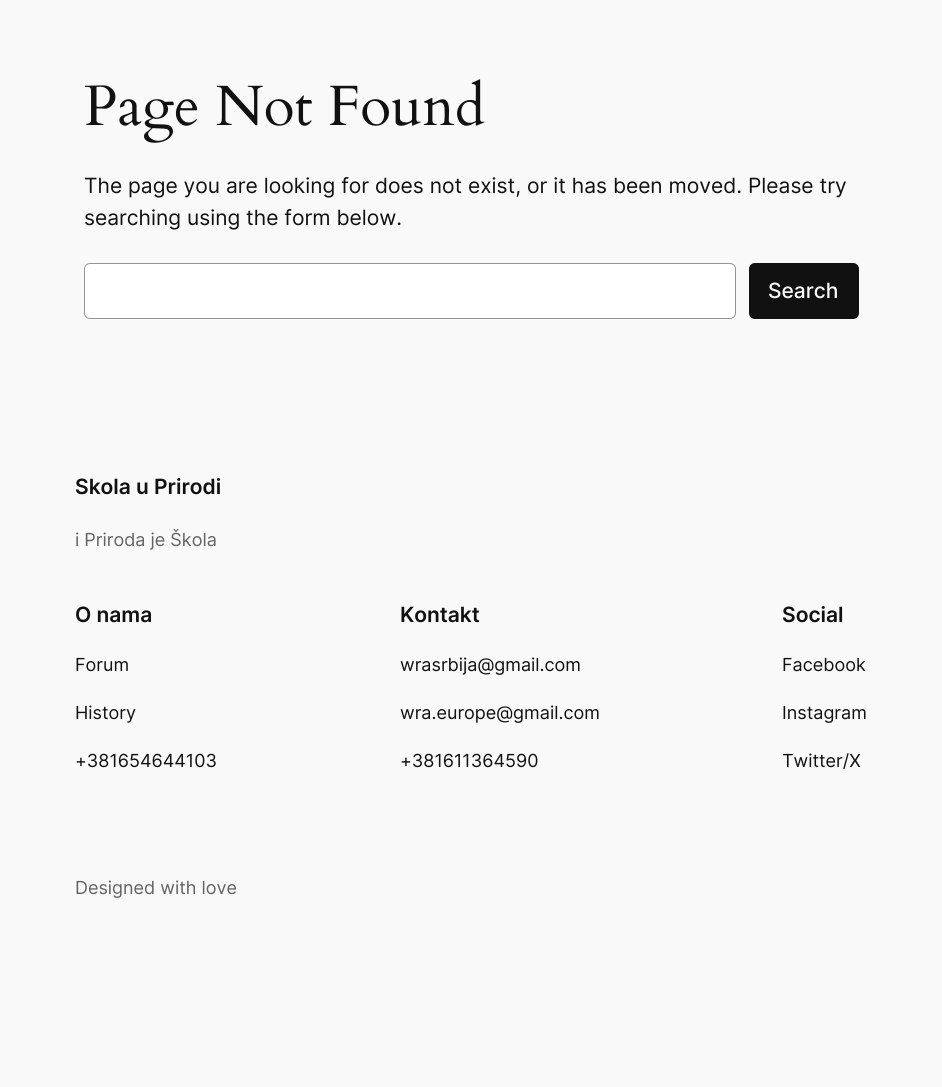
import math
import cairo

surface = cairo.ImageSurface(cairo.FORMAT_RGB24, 942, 1087)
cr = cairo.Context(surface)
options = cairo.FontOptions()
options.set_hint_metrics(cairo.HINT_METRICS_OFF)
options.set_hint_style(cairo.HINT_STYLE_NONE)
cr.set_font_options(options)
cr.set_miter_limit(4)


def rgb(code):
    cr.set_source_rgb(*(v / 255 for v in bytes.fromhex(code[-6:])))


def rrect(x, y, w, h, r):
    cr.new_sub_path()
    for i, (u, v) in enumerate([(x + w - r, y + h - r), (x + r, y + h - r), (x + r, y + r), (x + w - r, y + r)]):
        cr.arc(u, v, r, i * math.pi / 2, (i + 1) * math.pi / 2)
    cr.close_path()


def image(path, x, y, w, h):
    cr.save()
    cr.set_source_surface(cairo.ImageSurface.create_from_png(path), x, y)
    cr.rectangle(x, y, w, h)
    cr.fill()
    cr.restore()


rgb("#f9f9f9")
cr.paint()
image("img/1.png", 84, 79, 401, 64)
rgb("#ffffff")
rrect(84.5, 263.5, 651, 55, 5.5)
cr.fill_preserve()
rgb("#949494")
cr.set_line_width(1)
cr.stroke()
rgb("#111111")
rrect(749, 263, 110, 56, 6)
cr.fill()
cr.select_font_face("Inter")
cr.set_font_size(21)
cr.move_to(84, 193)
cr.show_text("The page you are looking for does not exist, or it has been moved. Please try")
cr.move_to(84, 225)
cr.show_text("searching using the form below.")
cr.select_font_face("Inter Medium")
rgb("#f9f9f9")
cr.move_to(768, 298)
cr.show_text("Search")
cr.select_font_face("Inter SemiBold")
rgb("#111111")
cr.move_to(75, 494)
cr.show_text("Skola u Prirodi")
cr.select_font_face("Inter")
cr.set_font_size(18)
rgb("#636363")
cr.move_to(75, 546)
cr.show_text("i Priroda je Škola")
cr.select_font_face("Inter SemiBold")
cr.set_font_size(21)
rgb("#111111")
cr.move_to(75, 622)
cr.show_text("O nama")
cr.select_font_face("Inter")
cr.set_font_size(18)
for x, y, s in [
    (75, 671, "Forum"),
    (75, 719, "History"),
    (75, 767, "+381654644103"),
]:
    cr.move_to(x, y)
    cr.show_text(s)
cr.select_font_face("Inter SemiBold")
cr.set_font_size(21)
cr.move_to(400, 622)
cr.show_text("Kontakt")
cr.select_font_face("Inter")
cr.set_font_size(18)
for x, y, s in [
    (400, 671, "wrasrbija@gmail.com"),
    (400, 719, "wra.europe@gmail.com"),
    (400, 767, "+381611364590"),
]:
    cr.move_to(x, y)
    cr.show_text(s)
cr.select_font_face("Inter SemiBold")
cr.set_font_size(21)
cr.move_to(782, 622)
cr.show_text("Social")
cr.select_font_face("Inter")
cr.set_font_size(18)
for x, y, s in [
    (782, 671, "Facebook"),
    (782, 719, "Instagram"),
    (782, 767, "Twitter/X"),
]:
    cr.move_to(x, y)
    cr.show_text(s)
rgb("#636363")
cr.move_to(75, 894)
cr.show_text("Designed with love")
surface.write_to_png("page.png")
